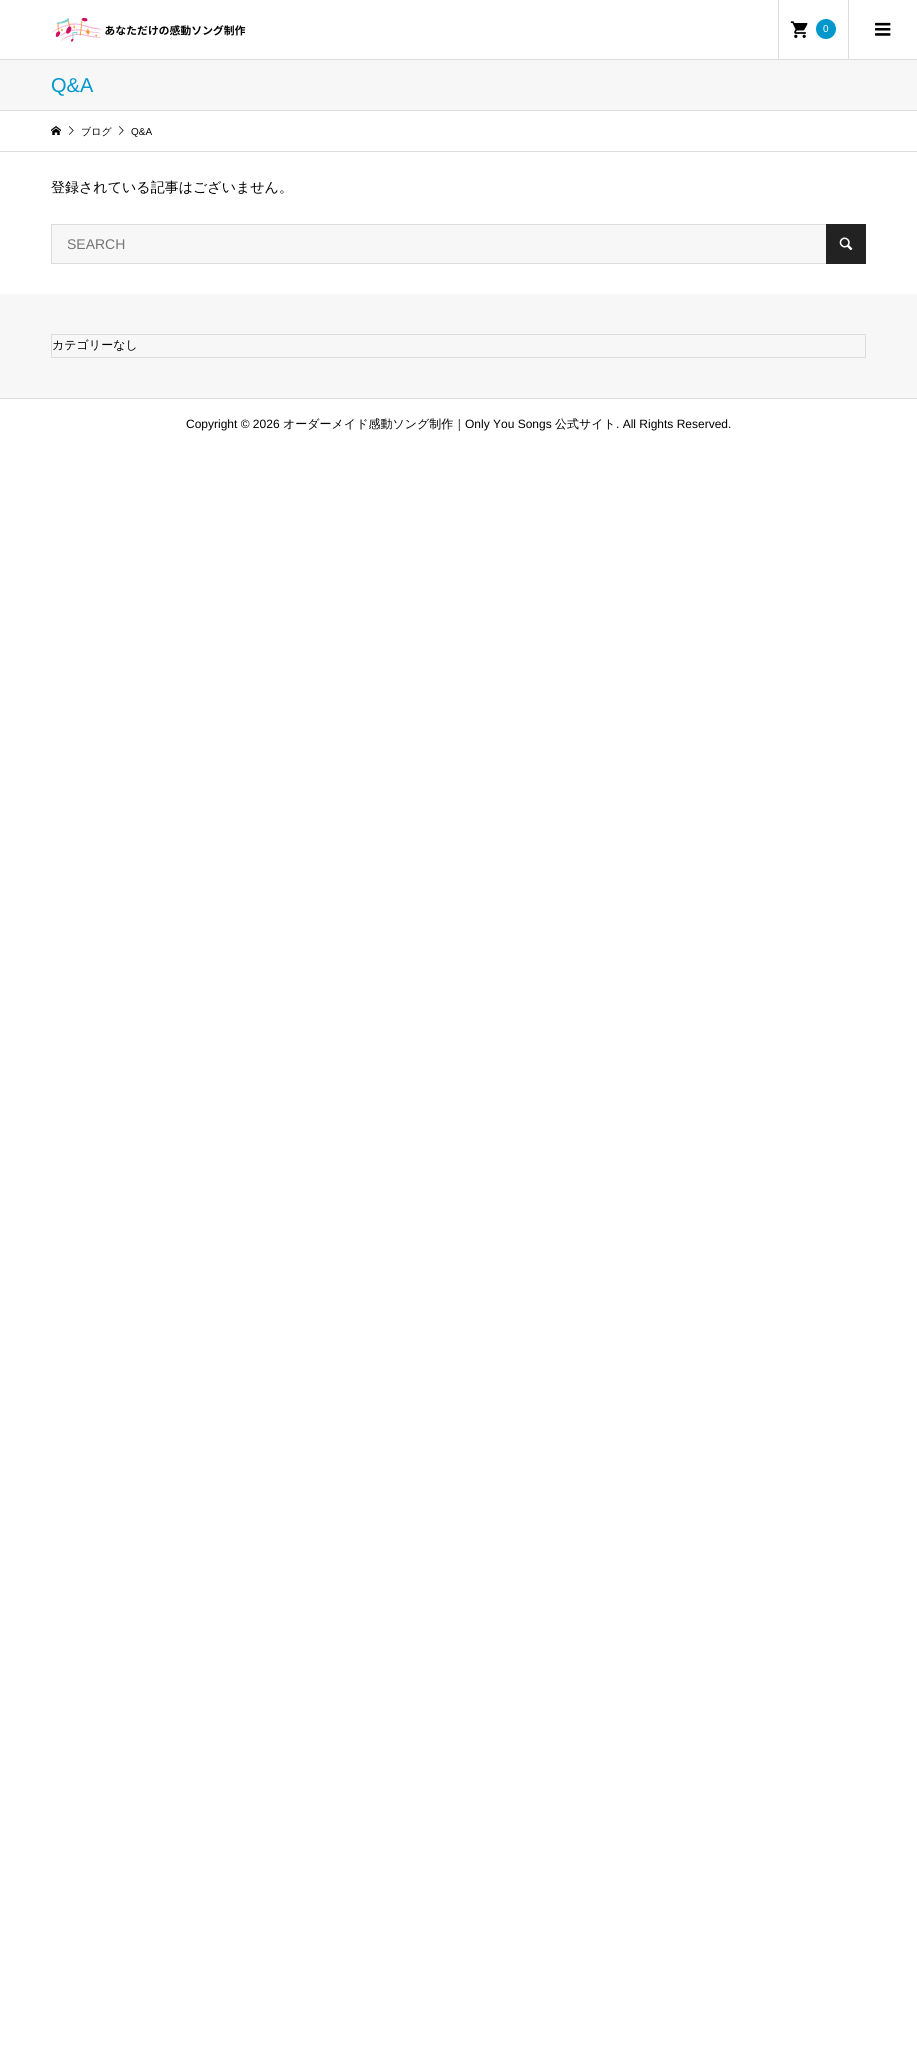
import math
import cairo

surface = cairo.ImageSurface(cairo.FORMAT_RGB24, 917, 2049)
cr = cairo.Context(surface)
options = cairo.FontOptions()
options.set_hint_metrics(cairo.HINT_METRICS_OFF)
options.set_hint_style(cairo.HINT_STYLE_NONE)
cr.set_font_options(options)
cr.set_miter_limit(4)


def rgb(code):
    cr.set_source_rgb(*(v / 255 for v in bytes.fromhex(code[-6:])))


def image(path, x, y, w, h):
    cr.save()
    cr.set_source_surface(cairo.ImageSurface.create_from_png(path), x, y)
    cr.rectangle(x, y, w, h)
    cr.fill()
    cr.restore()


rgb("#ffffff")
cr.paint()
rgb("#dddddd")
cr.rectangle(0, 59, 917, 1)
cr.fill()
image("img/1.png", 51, 17, 195, 25)
cr.rectangle(778, 0, 1, 59)
cr.fill()
image("img/2.png", 790, 21, 18, 17)
rgb("#0097cc")
cr.arc(826, 29, 10, 0, 2 * math.pi)
cr.fill()
rgb("#dddddd")
cr.rectangle(848, 0, 1, 59)
cr.fill()
image("img/3.png", 875, 22, 16, 14)
for x, y, w, h, color in [
    (0, 60, 917, 50, "#f7f7f7"),
    (0, 110, 917, 1, "#dddddd"),
    (0, 151, 917, 1, "#dddddd"),
]:
    rgb(color)
    cr.rectangle(x, y, w, h)
    cr.fill()
image("img/4.png", 51, 126, 10, 9)
image("img/5.png", 69, 126, 5, 9)
image("img/5.png", 119, 126, 5, 9)
for x, y, w, h, color in [
    (52, 225, 774, 38, "#f7f7f7"),
    (51, 224, 775, 1, "#dddddd"),
    (51, 263, 775, 1, "#dddddd"),
    (51, 224, 1, 40, "#dddddd"),
    (826, 224, 40, 40, "#222222"),
]:
    rgb(color)
    cr.rectangle(x, y, w, h)
    cr.fill()
image("img/6.png", 839, 237, 14, 14)
for x, y, w, h, color in [
    (0, 294, 917, 104, "#f7f7f7"),
    (865, 334, 1, 24, "#dddddd"),
    (51, 357, 815, 1, "#dddddd"),
    (51, 334, 1, 24, "#dddddd"),
    (52, 334, 813, 1, "#dddddd"),
    (0, 398, 917, 1, "#dddddd"),
]:
    rgb(color)
    cr.rectangle(x, y, w, h)
    cr.fill()
cr.select_font_face("Liberation Sans")
cr.set_font_size(10)
rgb("#ffffff")
cr.move_to(823, 32)
cr.show_text("0")
cr.set_font_size(20)
rgb("#0097cc")
cr.move_to(51, 92)
cr.show_text("Q&A")
cr.select_font_face("WenQuanYi Zen Hei Medium")
cr.set_font_size(10)
rgb("#000000")
cr.move_to(81, 135)
cr.show_text("ブログ")
cr.select_font_face("Liberation Sans")
cr.move_to(131, 135)
cr.show_text("Q&A")
cr.select_font_face("WenQuanYi Zen Hei Medium")
cr.set_font_size(14)
cr.move_to(51, 192)
cr.show_text("登録されている記事はございません。")
cr.select_font_face("Liberation Sans")
rgb("#757575")
cr.move_to(67, 249)
cr.show_text("SEARCH")
cr.select_font_face("WenQuanYi Zen Hei Medium")
cr.set_font_size(12)
rgb("#000000")
cr.move_to(52, 349)
cr.show_text("カテゴリーなし")
cr.select_font_face("Liberation Sans")
cr.move_to(186, 428)
cr.show_text("Copyright © 2026")
cr.select_font_face("WenQuanYi Zen Hei Medium")
cr.move_to(283, 428)
cr.show_text("オーダーメイド感動ソング制作｜")
cr.select_font_face("Liberation Sans")
cr.move_to(465, 428)
cr.show_text("Only You Songs")
cr.select_font_face("WenQuanYi Zen Hei Medium")
cr.move_to(555, 428)
cr.show_text("公式サイト")
cr.select_font_face("Liberation Sans")
cr.move_to(616, 428)
cr.show_text(". All Rights Reserved.")
surface.write_to_png("page.png")
